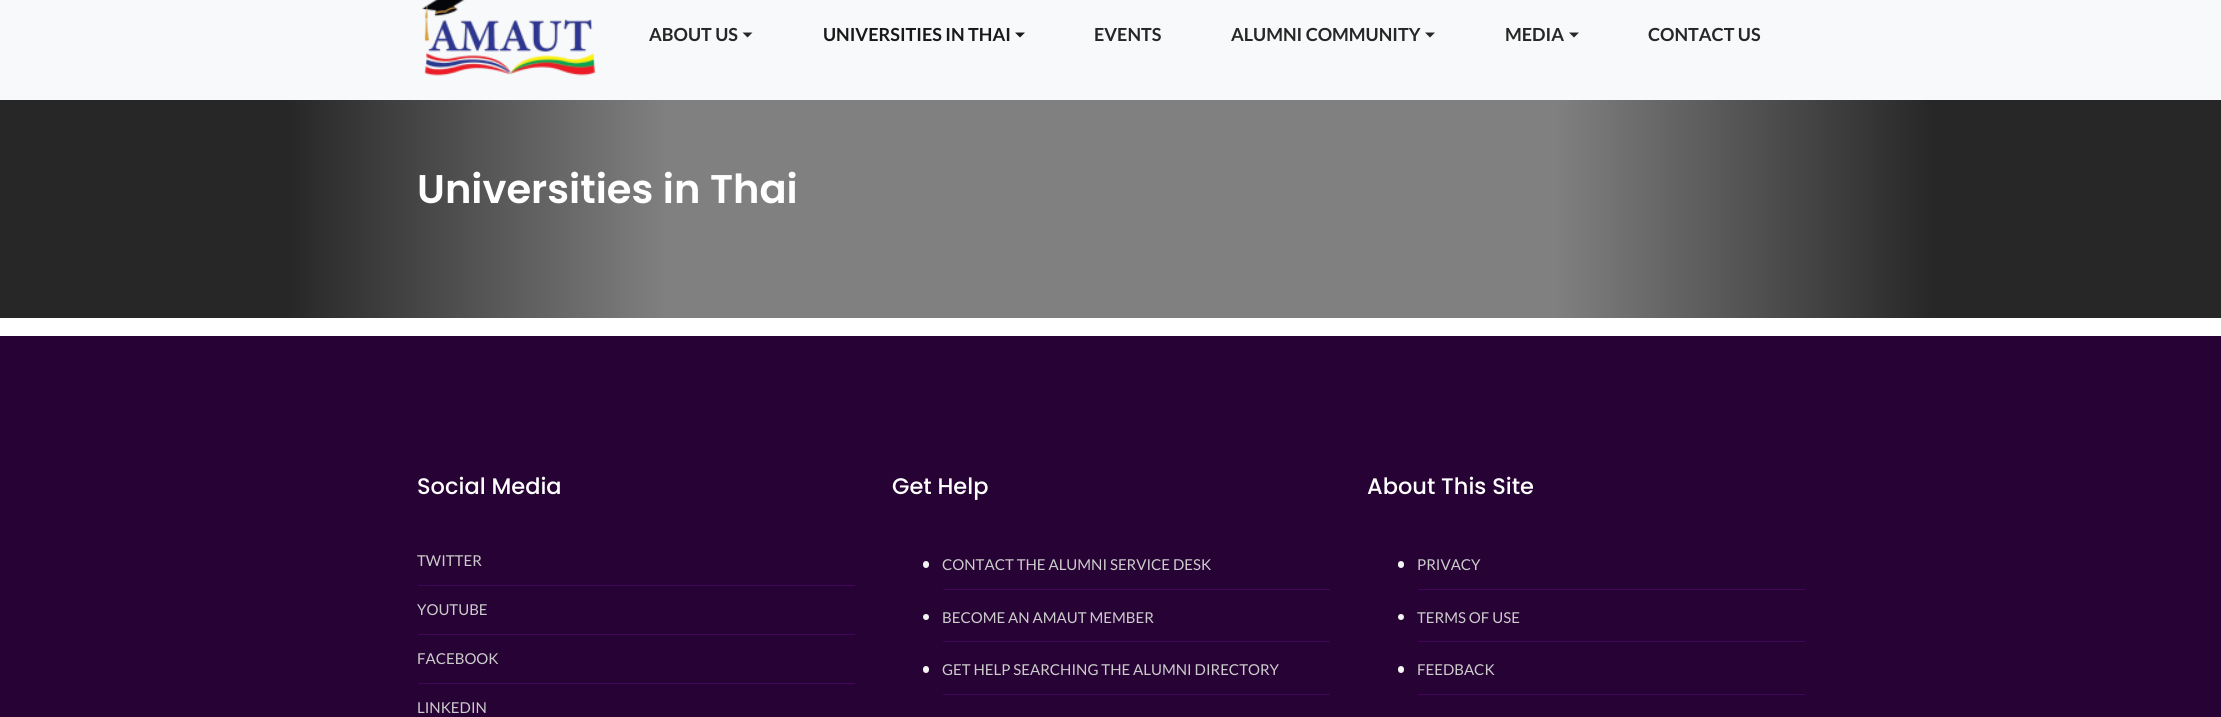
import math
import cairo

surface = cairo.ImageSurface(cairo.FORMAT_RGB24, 2221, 717)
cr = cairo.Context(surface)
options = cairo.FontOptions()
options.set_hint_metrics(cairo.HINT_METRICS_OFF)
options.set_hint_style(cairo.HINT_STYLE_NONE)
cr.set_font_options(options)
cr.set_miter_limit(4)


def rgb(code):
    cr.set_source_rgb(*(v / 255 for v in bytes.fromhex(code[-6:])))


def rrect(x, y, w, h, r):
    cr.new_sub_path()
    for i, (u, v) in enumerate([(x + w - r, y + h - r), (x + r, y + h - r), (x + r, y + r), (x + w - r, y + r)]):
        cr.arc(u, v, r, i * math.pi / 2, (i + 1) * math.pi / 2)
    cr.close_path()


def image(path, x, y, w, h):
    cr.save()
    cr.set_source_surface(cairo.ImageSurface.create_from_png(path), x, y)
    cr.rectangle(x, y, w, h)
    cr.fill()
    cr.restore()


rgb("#ffffff")
cr.paint()
rgb("#f8f9fa")
cr.rectangle(0, 0, 2221, 100)
cr.fill()
image("img/1.png", 422, 0, 174, 76)
rgb("#272727")
cr.new_path()
cr.move_to(742.5, 32.5)
cr.line_to(752.5, 32.5)
cr.line_to(747.5, 37.5)
cr.close_path()
cr.fill()
rgb("#191919")
cr.new_path()
cr.move_to(1015, 32.5)
cr.line_to(1025, 32.5)
cr.line_to(1020, 37.5)
cr.close_path()
cr.fill()
rgb("#272727")
cr.new_path()
cr.move_to(1425, 32.5)
cr.line_to(1435, 32.5)
cr.line_to(1430, 37.5)
cr.close_path()
cr.fill()
cr.new_path()
cr.move_to(1569, 32.5)
cr.line_to(1579, 32.5)
cr.line_to(1574, 37.5)
cr.close_path()
cr.fill()
gradient = cairo.LinearGradient(0, 209, 2221, 209)
gradient.add_color_stop_rgba(0, 0.153, 0.153, 0.153, 1)
gradient.add_color_stop_rgba(0.13, 0.153, 0.153, 0.153, 1)
gradient.add_color_stop_rgba(0.3, 0.502, 0.502, 0.502, 1)
gradient.add_color_stop_rgba(0.7, 0.502, 0.502, 0.502, 1)
gradient.add_color_stop_rgba(0.87, 0.153, 0.153, 0.153, 1)
gradient.add_color_stop_rgba(1, 0.153, 0.153, 0.153, 1)
cr.set_source(gradient)
cr.rectangle(0, 100, 2221, 218)
cr.fill()
for x, y, w, h, color in [
    (0, 336, 2221, 381, "#270335"),
    (418, 585, 437, 1, "#43055c"),
    (418, 634, 437, 1, "#43055c"),
    (418, 683, 437, 1, "#43055c"),
]:
    rgb(color)
    cr.rectangle(x, y, w, h)
    cr.fill()
rgb("#f4f4f2")
rrect(923, 561, 6, 7, 3)
cr.fill()
rgb("#43055c")
cr.rectangle(943, 589, 387, 1)
cr.fill()
rgb("#f4f4f2")
cr.arc(926, 617, 3, 0, 2 * math.pi)
cr.fill()
rgb("#43055c")
cr.rectangle(943, 641, 387, 1)
cr.fill()
rgb("#f4f4f2")
rrect(923, 666, 6, 7, 3)
cr.fill()
rgb("#43055c")
cr.rectangle(943, 694, 387, 1)
cr.fill()
rgb("#f4f4f2")
rrect(1398, 561, 6, 7, 3)
cr.fill()
rgb("#43055c")
cr.rectangle(1418, 589, 387, 1)
cr.fill()
rgb("#f4f4f2")
cr.arc(1401, 617, 3, 0, 2 * math.pi)
cr.fill()
rgb("#43055c")
cr.rectangle(1418, 641, 387, 1)
cr.fill()
rgb("#f4f4f2")
rrect(1398, 666, 6, 7, 3)
cr.fill()
rgb("#43055c")
cr.rectangle(1418, 694, 387, 1)
cr.fill()
cr.select_font_face("Lato", cairo.FONT_SLANT_NORMAL, cairo.FONT_WEIGHT_BOLD)
cr.set_font_size(18)
rgb("#272727")
cr.move_to(649, 41)
cr.show_text("ABOUT US")
rgb("#191919")
cr.move_to(823, 41)
cr.show_text("UNIVERSITIES IN THAI")
rgb("#272727")
for x, y, s in [
    (1094, 41, "EVENTS"),
    (1231, 41, "ALUMNI COMMUNITY"),
    (1505, 41, "MEDIA"),
    (1648, 41, "CONTACT US"),
]:
    cr.move_to(x, y)
    cr.show_text(s)
cr.select_font_face("Poppins SemiBold")
cr.set_font_size(40)
rgb("#ffffff")
cr.move_to(417, 203)
cr.show_text("Universities in Thai")
cr.select_font_face("Poppins Medium")
cr.set_font_size(22.5)
cr.move_to(417, 494)
cr.show_text("Social Media")
cr.select_font_face("Lato")
cr.set_font_size(15)
rgb("#cccccc")
for x, y, s in [
    (417, 566, "TWITTER"),
    (417, 615, "YOUTUBE"),
    (417, 664, "FACEBOOK"),
    (417, 713, "LINKEDIN"),
]:
    cr.move_to(x, y)
    cr.show_text(s)
cr.select_font_face("Poppins Medium")
cr.set_font_size(22.5)
rgb("#ffffff")
cr.move_to(892, 494)
cr.show_text("Get Help")
cr.select_font_face("Lato")
cr.set_font_size(15)
rgb("#cccccc")
for x, y, s in [
    (942, 570, "CONTACT THE ALUMNI SERVICE DESK"),
    (942, 623, "BECOME AN AMAUT MEMBER"),
    (942, 675, "GET HELP SEARCHING THE ALUMNI DIRECTORY"),
]:
    cr.move_to(x, y)
    cr.show_text(s)
cr.select_font_face("Poppins Medium")
cr.set_font_size(22.5)
rgb("#ffffff")
cr.move_to(1367, 494)
cr.show_text("About This Site")
cr.select_font_face("Lato")
cr.set_font_size(15)
rgb("#cccccc")
for x, y, s in [
    (1417, 570, "PRIVACY"),
    (1417, 623, "TERMS OF USE"),
    (1417, 675, "FEEDBACK"),
]:
    cr.move_to(x, y)
    cr.show_text(s)
surface.write_to_png("page.png")
